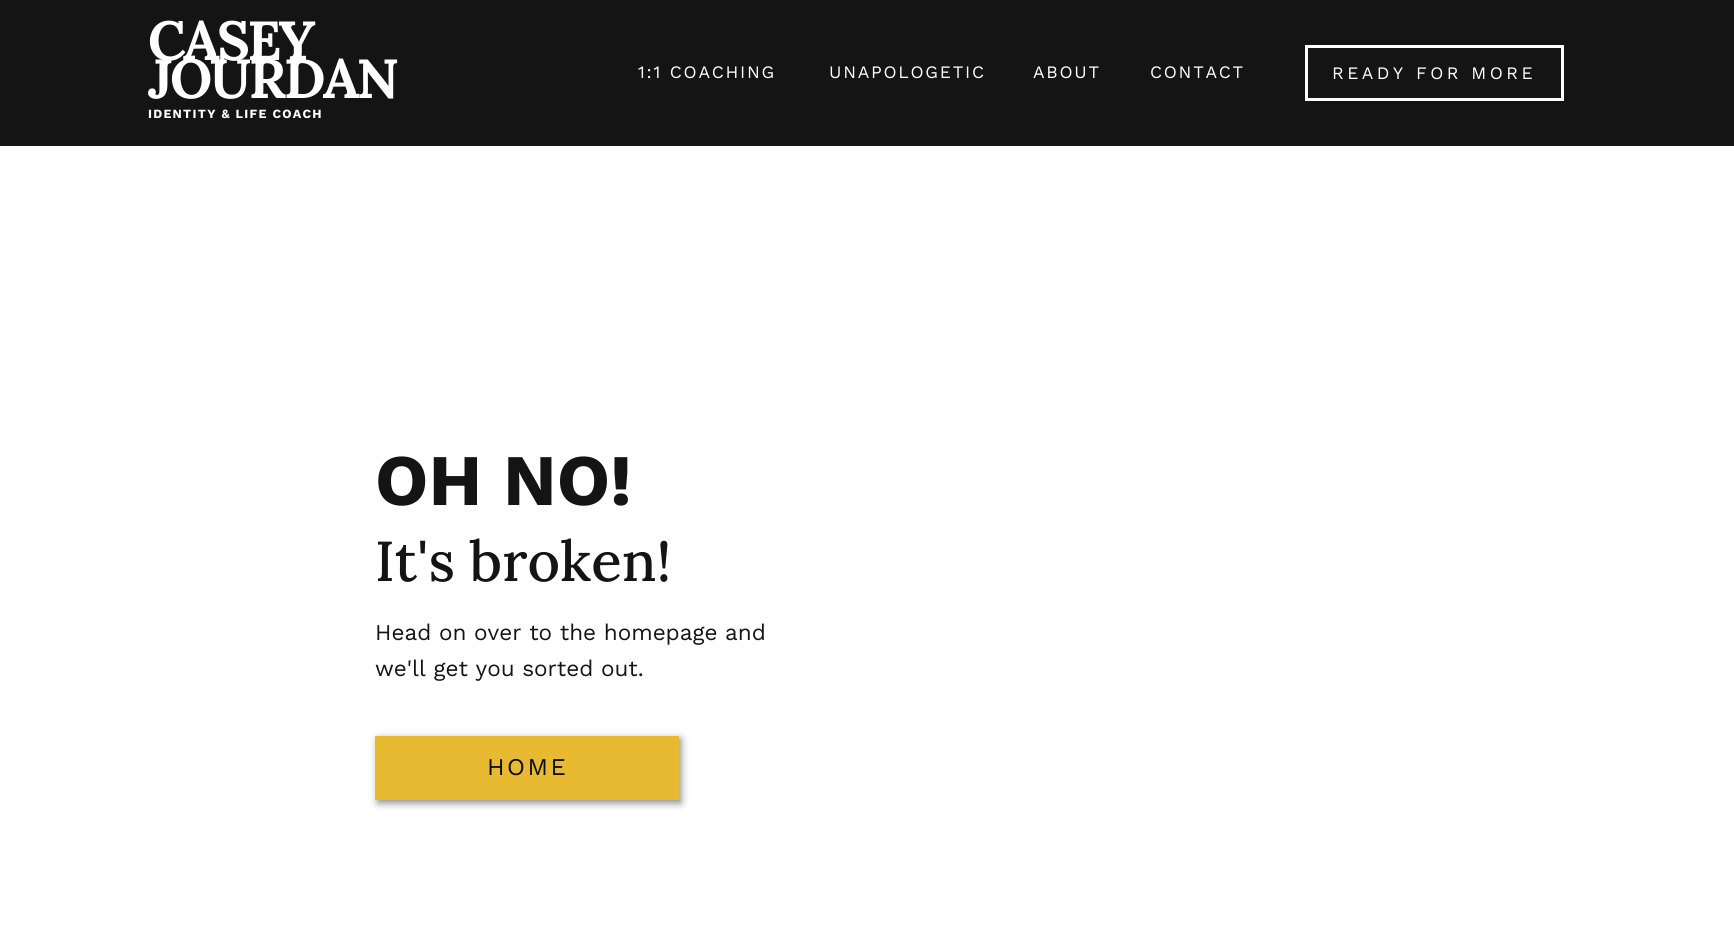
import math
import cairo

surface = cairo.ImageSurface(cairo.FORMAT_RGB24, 1734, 938)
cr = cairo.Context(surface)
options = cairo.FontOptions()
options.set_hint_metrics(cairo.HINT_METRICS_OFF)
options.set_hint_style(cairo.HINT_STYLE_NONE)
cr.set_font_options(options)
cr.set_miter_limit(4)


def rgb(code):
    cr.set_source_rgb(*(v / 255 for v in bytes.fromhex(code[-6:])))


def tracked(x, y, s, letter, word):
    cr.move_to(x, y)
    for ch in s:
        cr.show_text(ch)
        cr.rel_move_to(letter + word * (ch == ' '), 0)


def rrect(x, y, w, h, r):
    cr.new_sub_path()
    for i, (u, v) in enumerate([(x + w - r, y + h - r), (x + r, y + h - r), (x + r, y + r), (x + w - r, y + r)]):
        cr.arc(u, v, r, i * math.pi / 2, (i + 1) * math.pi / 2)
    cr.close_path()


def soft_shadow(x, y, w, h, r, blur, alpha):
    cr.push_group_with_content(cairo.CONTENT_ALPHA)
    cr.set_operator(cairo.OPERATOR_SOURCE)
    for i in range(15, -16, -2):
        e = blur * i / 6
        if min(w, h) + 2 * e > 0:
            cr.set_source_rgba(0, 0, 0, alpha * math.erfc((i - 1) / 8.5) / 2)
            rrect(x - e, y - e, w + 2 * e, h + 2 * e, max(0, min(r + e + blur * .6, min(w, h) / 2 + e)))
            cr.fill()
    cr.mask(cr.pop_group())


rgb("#ffffff")
cr.paint()
rgb("#141414")
cr.rectangle(0, 0, 1734, 146)
cr.fill()
cr.rectangle(1306.5, 46.5, 256, 53)
rgb("#ffffff")
cr.set_line_width(3)
cr.stroke()
rgb("#141414")
soft_shadow(378, 739, 303, 64, 0, 4, 0.5)
rgb("#e7ba32")
cr.rectangle(375, 736, 304, 64)
cr.fill()
cr.select_font_face("Lora", cairo.FONT_SLANT_NORMAL, cairo.FONT_WEIGHT_BOLD)
cr.set_font_size(55)
rgb("#ffffff")
tracked(148, 60, "CASEY", -2.75, 0)
tracked(148, 98, "JOURDAN", -2.75, 0)
cr.select_font_face("Work Sans", cairo.FONT_SLANT_NORMAL, cairo.FONT_WEIGHT_BOLD)
cr.set_font_size(12.5)
tracked(148, 118, "IDENTITY & LIFE COACH", 1.25, 0)
cr.select_font_face("Work Sans")
cr.set_font_size(17.5)
for x, y, s in [
    (638, 78, "1:1 COACHING"),
    (829, 78, "UNAPOLOGETIC"),
    (1033, 78, "ABOUT"),
    (1150, 78, "CONTACT"),
]:
    tracked(x, y, s, 1.75, 0)
tracked(1332, 79, "READY FOR MORE", 3.5, 0)
cr.select_font_face("Work Sans", cairo.FONT_SLANT_NORMAL, cairo.FONT_WEIGHT_BOLD)
cr.set_font_size(72.5)
rgb("#141414")
cr.move_to(375, 505)
cr.show_text("OH NO!")
cr.select_font_face("Lora Medium")
cr.set_font_size(56.25)
cr.move_to(375, 581)
cr.show_text("It's broken!")
cr.select_font_face("Work Sans")
cr.set_font_size(22.5)
cr.move_to(375, 640)
cr.show_text("Head on over to the homepage and")
cr.move_to(375, 676)
cr.show_text("we'll get you sorted out.")
cr.set_font_size(24)
rgb("#0d0d0d")
tracked(487, 775, "HOME", 2.5, 0)
surface.write_to_png("page.png")
